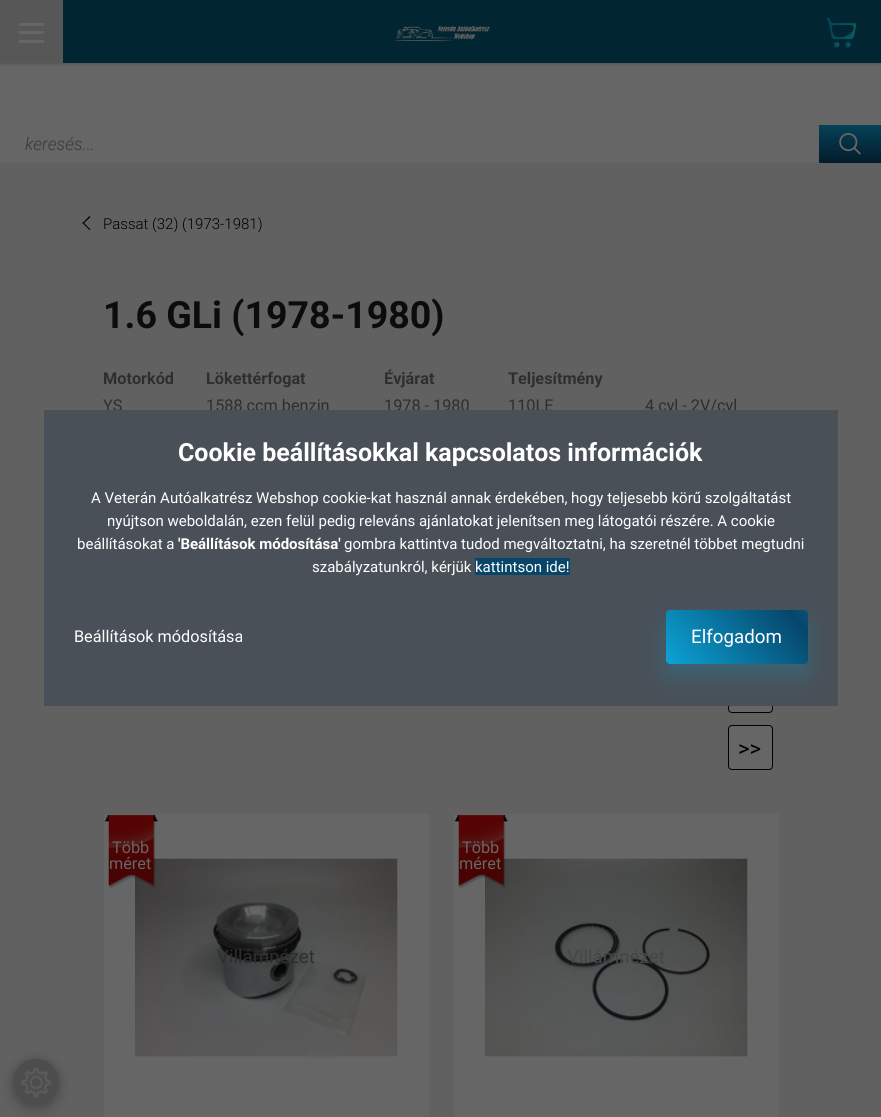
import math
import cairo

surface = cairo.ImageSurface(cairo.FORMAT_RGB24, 881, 1117)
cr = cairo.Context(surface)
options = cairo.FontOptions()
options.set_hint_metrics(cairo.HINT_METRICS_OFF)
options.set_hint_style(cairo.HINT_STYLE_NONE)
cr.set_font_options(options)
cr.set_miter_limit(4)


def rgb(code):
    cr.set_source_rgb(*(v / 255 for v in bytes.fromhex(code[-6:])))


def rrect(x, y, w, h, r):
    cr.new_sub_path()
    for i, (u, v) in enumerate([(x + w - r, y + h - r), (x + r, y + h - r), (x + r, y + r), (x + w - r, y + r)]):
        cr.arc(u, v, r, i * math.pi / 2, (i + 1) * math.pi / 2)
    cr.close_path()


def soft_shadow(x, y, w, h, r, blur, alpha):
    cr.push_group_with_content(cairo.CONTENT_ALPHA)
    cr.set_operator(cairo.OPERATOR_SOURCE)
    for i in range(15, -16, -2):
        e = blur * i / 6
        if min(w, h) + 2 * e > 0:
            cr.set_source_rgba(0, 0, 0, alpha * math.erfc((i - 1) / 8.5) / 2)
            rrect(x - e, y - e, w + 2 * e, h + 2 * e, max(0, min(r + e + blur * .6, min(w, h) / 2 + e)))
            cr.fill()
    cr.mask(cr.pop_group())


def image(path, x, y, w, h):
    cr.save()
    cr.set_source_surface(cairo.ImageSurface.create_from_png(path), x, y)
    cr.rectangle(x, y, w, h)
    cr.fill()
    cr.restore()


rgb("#616161")
cr.paint()
rgb("#666666")
cr.rectangle(0, 63, 881, 62)
cr.fill()
rgb("#000000")
soft_shadow(0, 1, 881, 63, 0, 2, 0.2)
rgb("#022532")
cr.rectangle(63, 0, 818, 63)
cr.fill()
rgb("#575757")
cr.rectangle(0, 0, 63, 63)
cr.fill()
rgb("#666666")
rrect(19, 23, 25, 3, 1.5)
cr.fill()
rrect(19, 31, 25, 3, 1.5)
cr.fill()
rrect(19, 40, 25, 3, 1.5)
cr.fill()
image("img/1.png", 396, 24, 94, 18)
image("img/2.png", 826, 18, 30, 30)
cr.rectangle(0, 125, 819, 38)
cr.fill()
gradient = cairo.LinearGradient(850, 125, 850, 163)
gradient.add_color_stop_rgba(0, 0.02, 0.255, 0.337, 1)
gradient.add_color_stop_rgba(1, 0.012, 0.11, 0.169, 1)
cr.set_source(gradient)
cr.rectangle(819, 125, 62, 38)
cr.fill()
image("img/3.png", 839, 133, 22, 22)
rgb("#000000")
cr.new_path()
cr.move_to(90.5, 229.5)
cr.line_to(89.5, 230)
cr.line_to(82.5, 223)
cr.line_to(83, 222)
cr.close_path()
cr.fill()
cr.new_path()
cr.move_to(90.5, 217)
cr.line_to(83, 224)
cr.line_to(82.5, 223)
cr.line_to(89.5, 216)
cr.close_path()
cr.fill()
rgb("#666666")
rrect(728.5, 668.5, 44, 44, 3.5)
cr.fill_preserve()
rgb("#000000")
cr.set_line_width(1)
cr.stroke()
rgb("#666666")
rrect(728.5, 725.5, 44, 44, 3.5)
cr.fill_preserve()
rgb("#000000")
cr.stroke()
rgb("#666666")
cr.rectangle(104, 814, 325, 303)
cr.fill()
image("img/5.png", 135, 857, 263, 202)
image("img/4.png", 104, 814, 54, 75)
cr.rectangle(454, 814, 325, 303)
cr.fill()
image("img/7.png", 485, 857, 263, 200)
image("img/6.png", 454, 814, 54, 75)
cr.save()
cr.set_fill_rule(cairo.FILL_RULE_EVEN_ODD)
cr.new_path()
cr.move_to(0, 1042)
cr.line_to(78, 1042)
cr.line_to(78, 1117)
cr.line_to(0, 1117)
cr.close_path()
cr.move_to(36, 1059)
cr.curve_to(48.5, 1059, 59, 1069.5, 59, 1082)
cr.curve_to(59, 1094.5, 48.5, 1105, 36, 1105)
cr.curve_to(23.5, 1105, 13, 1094.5, 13, 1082)
cr.curve_to(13, 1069.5, 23.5, 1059, 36, 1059)
cr.close_path()
cr.clip()
rgb("#000000")
soft_shadow(13, 1061, 46, 47, 23, 6, 0.3)
cr.restore()
cr.set_source_rgba(0.122, 0.122, 0.122, 0.3)
cr.arc(36, 1082, 23, 0, 2 * math.pi)
cr.fill()
image("img/8.png", 21, 1068, 30, 30)
cr.select_font_face("Roboto Light", cairo.FONT_SLANT_ITALIC)
cr.set_font_size(17.5)
rgb("#393939")
cr.move_to(25, 150)
cr.show_text("keresés...")
cr.select_font_face("Roboto Light")
cr.set_font_size(15)
rgb("#000000")
cr.move_to(103, 229)
cr.show_text("Passat (32) (1973-1981)")
cr.select_font_face("Roboto", cairo.FONT_SLANT_NORMAL, cairo.FONT_WEIGHT_BOLD)
cr.set_font_size(37.5)
rgb("#0d0c0c")
cr.move_to(103, 328)
cr.show_text("1.6 GLi (1978-1980)")
cr.set_font_size(16.25)
rgb("#2d2e30")
for x, y, s in [
    (103, 384, "Motorkód"),
    (206, 384, "Lökettérfogat"),
    (384, 384, "Évjárat"),
    (508, 384, "Teljesítmény"),
]:
    cr.move_to(x, y)
    cr.show_text(s)
cr.select_font_face("Roboto")
for x, y, s in [
    (103, 411, "YS"),
    (206, 411, "1588 ccm benzin"),
    (384, 411, "1978 - 1980"),
    (508, 411, "110LE"),
    (645, 411, "4 cyl - 2V/cyl"),
]:
    cr.move_to(x, y)
    cr.show_text(s)
cr.set_font_size(22)
rgb("#000000")
cr.move_to(738, 756)
cr.show_text(">>")
cr.set_font_size(16.25)
rgb("#666666")
cr.move_to(112, 853)
cr.show_text("Több")
cr.move_to(109, 869)
cr.show_text("méret")
cr.set_font_size(18.75)
rgb("#2d2e30")
cr.move_to(217, 963)
cr.show_text("Villámnézet")
cr.set_font_size(16.25)
rgb("#666666")
cr.move_to(462, 853)
cr.show_text("Több")
cr.move_to(459, 869)
cr.show_text("méret")
cr.set_font_size(18.75)
rgb("#434646")
cr.move_to(567, 963)
cr.show_text("Villámnézet")
rgb("#495057")
cr.rectangle(44, 410, 794, 296)
cr.fill()
cr.select_font_face("Roboto", cairo.FONT_SLANT_NORMAL, cairo.FONT_WEIGHT_BOLD)
cr.set_font_size(25)
rgb("#ffffff")
cr.move_to(178, 461)
cr.show_text("Cookie beállításokkal kapcsolatos információk")
cr.select_font_face("Roboto")
cr.set_font_size(15)
for x, y, s in [
    (91, 503, "A Veterán Autóalkatrész Webshop cookie-kat használ annak érdekében, hogy teljesebb körű szolgáltatást"),
    (107, 526, "nyújtson weboldalán, ezen felül pedig releváns ajánlatokat jelenítsen meg látogatói részére. A cookie"),
    (77, 549, "beállításokat a"),
]:
    cr.move_to(x, y)
    cr.show_text(s)
cr.select_font_face("Roboto", cairo.FONT_SLANT_NORMAL, cairo.FONT_WEIGHT_BOLD)
cr.move_to(178, 549)
cr.show_text("'Beállítások módosítása'")
cr.select_font_face("Roboto")
cr.move_to(344, 549)
cr.show_text("gombra kattintva tudod megváltoztatni, ha szeretnél többet megtudni")
cr.move_to(312, 572)
cr.show_text("szabályzatunkról, kérjük")
rgb("#07466b")
cr.rectangle(475, 558, 95, 17)
cr.fill()
rgb("#ffffff")
cr.move_to(475, 572)
cr.show_text("kattintson ide!")
cr.set_font_size(16.25)
cr.move_to(74, 642)
cr.show_text("Beállítások módosítása")
rgb("#0ca3d6")
soft_shadow(666, 623, 142, 53, 4, 12.5, 0.25)
gradient = cairo.LinearGradient(711, 718, 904, 557)
gradient.add_color_stop_rgba(0, 0.047, 0.639, 0.839, 1)
gradient.add_color_stop_rgba(0.51, 0.027, 0.275, 0.42, 1)
gradient.add_color_stop_rgba(1, 0.047, 0.639, 0.839, 1)
cr.set_source(gradient)
rrect(666, 610, 142, 54, 4)
cr.fill()
cr.set_font_size(18.75)
rgb("#ffffff")
cr.move_to(691, 643)
cr.show_text("Elfogadom")
surface.write_to_png("page.png")
